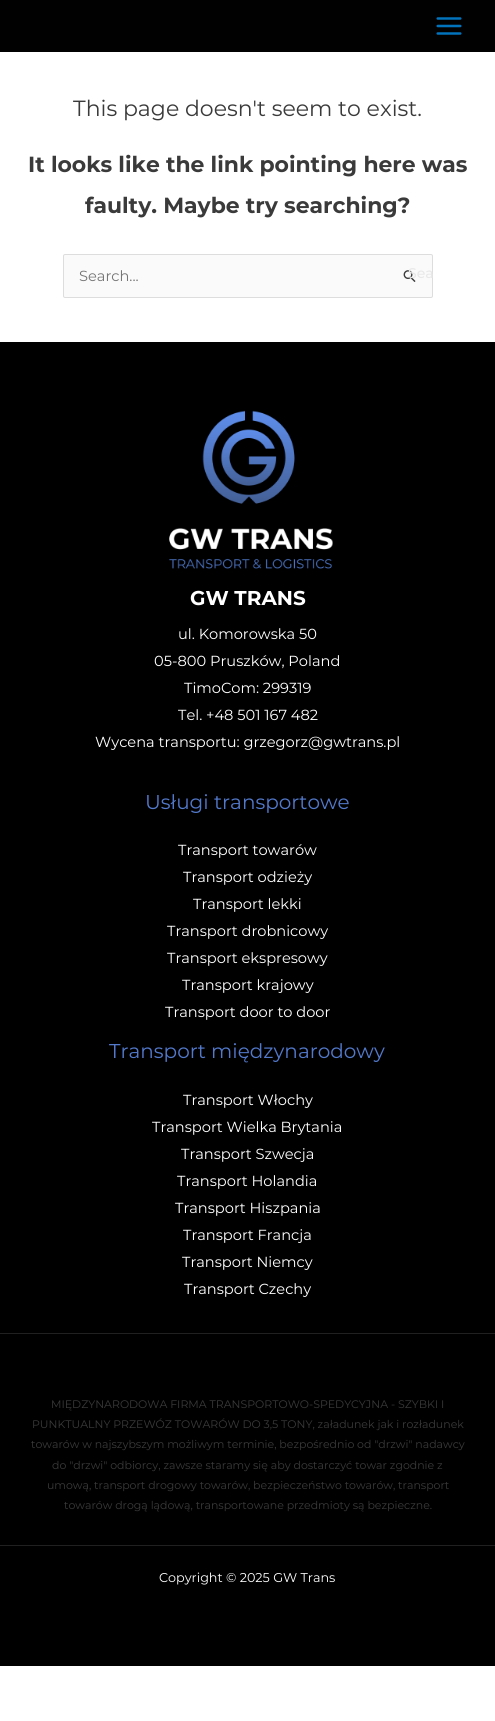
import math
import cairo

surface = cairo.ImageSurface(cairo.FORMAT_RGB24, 495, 1721)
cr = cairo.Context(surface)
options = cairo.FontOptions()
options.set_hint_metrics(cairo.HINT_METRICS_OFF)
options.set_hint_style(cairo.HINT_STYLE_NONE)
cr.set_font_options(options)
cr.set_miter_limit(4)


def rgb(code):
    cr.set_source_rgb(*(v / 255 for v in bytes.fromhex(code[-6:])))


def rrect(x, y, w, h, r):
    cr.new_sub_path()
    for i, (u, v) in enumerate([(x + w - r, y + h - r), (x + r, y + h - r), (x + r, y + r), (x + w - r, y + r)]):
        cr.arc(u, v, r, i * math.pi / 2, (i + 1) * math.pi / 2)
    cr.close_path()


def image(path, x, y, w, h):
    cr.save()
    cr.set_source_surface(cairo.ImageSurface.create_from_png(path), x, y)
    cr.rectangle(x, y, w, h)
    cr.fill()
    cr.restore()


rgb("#ffffff")
cr.paint()
rgb("#010101")
cr.rectangle(0, 0, 495, 52)
cr.fill()
image("img/1.png", 436, 17, 26, 18)
rgb("#fafafa")
rrect(63.5, 254.5, 369, 43, 1.5)
cr.fill_preserve()
rgb("#dddddd")
cr.set_line_width(1)
cr.stroke()
image("img/2.png", 403, 270, 13, 12)
rgb("#000000")
cr.rectangle(0, 342, 495, 991)
cr.fill()
image("img/3.png", 169, 410, 164, 159)
for x, y, w, h, color in [
    (0, 1334, 495, 211, "#000000"),
    (0, 1333, 495, 1, "#202020"),
    (0, 1546, 495, 120, "#000000"),
    (0, 1545, 495, 1, "#202020"),
]:
    rgb(color)
    cr.rectangle(x, y, w, h)
    cr.fill()
cr.select_font_face("Montserrat")
cr.set_font_size(22)
rgb("#3a3a3a")
cr.move_to(73, 116)
cr.show_text("This page doesn't seem to exist.")
cr.select_font_face("Montserrat", cairo.FONT_SLANT_NORMAL, cairo.FONT_WEIGHT_BOLD)
cr.set_font_size(21.9)
cr.move_to(28, 172)
cr.show_text("It looks like the link pointing here was")
cr.move_to(85, 213)
cr.show_text("faulty. Maybe try searching?")
cr.select_font_face("Montserrat")
cr.set_font_size(14.6)
rgb("#757575")
cr.move_to(79, 281)
cr.show_text("Search...")
cr.select_font_face("Montserrat Medium")
cr.set_font_size(14)
rgb("#e8e8e8")
cr.move_to(408, 278)
cr.show_text("Sea")
cr.select_font_face("Montserrat", cairo.FONT_SLANT_NORMAL, cairo.FONT_WEIGHT_BOLD)
cr.set_font_size(20)
rgb("#ffffff")
cr.move_to(190, 605)
cr.show_text("GW TRANS")
cr.select_font_face("Montserrat")
cr.set_font_size(14.6)
for x, y, s in [
    (178, 639, "ul. Komorowska 50"),
    (154, 666, "05-800 Pruszków, Poland"),
    (184, 693, "TimoCom: 299319"),
    (178, 720, "Tel. +48 501 167 482"),
    (95, 747, "Wycena transportu: grzegorz@gwtrans.pl"),
]:
    cr.move_to(x, y)
    cr.show_text(s)
cr.set_font_size(20)
rgb("#5279cb")
cr.move_to(145, 809)
cr.show_text("Usługi transportowe")
cr.set_font_size(14.6)
rgb("#ffffff")
for x, y, s in [
    (178, 855, "Transport towarów"),
    (183, 882, "Transport odzieży"),
    (193, 909, "Transport lekki"),
    (167, 936, "Transport drobnicowy"),
    (167, 963, "Transport ekspresowy"),
    (182, 990, "Transport krajowy"),
    (165, 1017, "Transport door to door"),
]:
    cr.move_to(x, y)
    cr.show_text(s)
cr.set_font_size(20)
rgb("#5279cb")
cr.move_to(109, 1058)
cr.show_text("Transport międzynarodowy")
cr.set_font_size(14.6)
rgb("#ffffff")
for x, y, s in [
    (183, 1105, "Transport Włochy"),
    (152, 1132, "Transport Wielka Brytania"),
    (181, 1159, "Transport Szwecja"),
    (177, 1186, "Transport Holandia"),
    (175, 1213, "Transport Hiszpania"),
    (183, 1240, "Transport Francja"),
    (182, 1267, "Transport Niemcy"),
    (184, 1294, "Transport Czechy"),
]:
    cr.move_to(x, y)
    cr.show_text(s)
cr.set_font_size(10.95)
rgb("#3a3a3a")
for x, y, s in [
    (51, 1408, "MIĘDZYNARODOWA FIRMA TRANSPORTOWO-SPEDYCYJNA - SZYBKI I"),
    (32, 1428, "PUNKTUALNY PRZEWÓZ TOWARÓW DO 3,5 TONY, załadunek jak i rozładunek"),
    (31, 1448, "towarów w najszybszym możliwym terminie, bezpośrednio od \"drzwi\" nadawcy"),
    (52, 1469, "do \"drzwi\" odbiorcy, zawsze staramy się aby dostarczyć towar zgodnie z"),
    (47, 1489, "umową, transport drogowy towarów, bezpieczeństwo towarów, transport"),
    (64, 1509, "towarów drogą lądową, transportowane przedmioty są bezpieczne."),
]:
    cr.move_to(x, y)
    cr.show_text(s)
cr.set_font_size(12.75)
rgb("#ffffff")
cr.move_to(159, 1582)
cr.show_text("Copyright © 2025 GW Trans")
surface.write_to_png("page.png")
